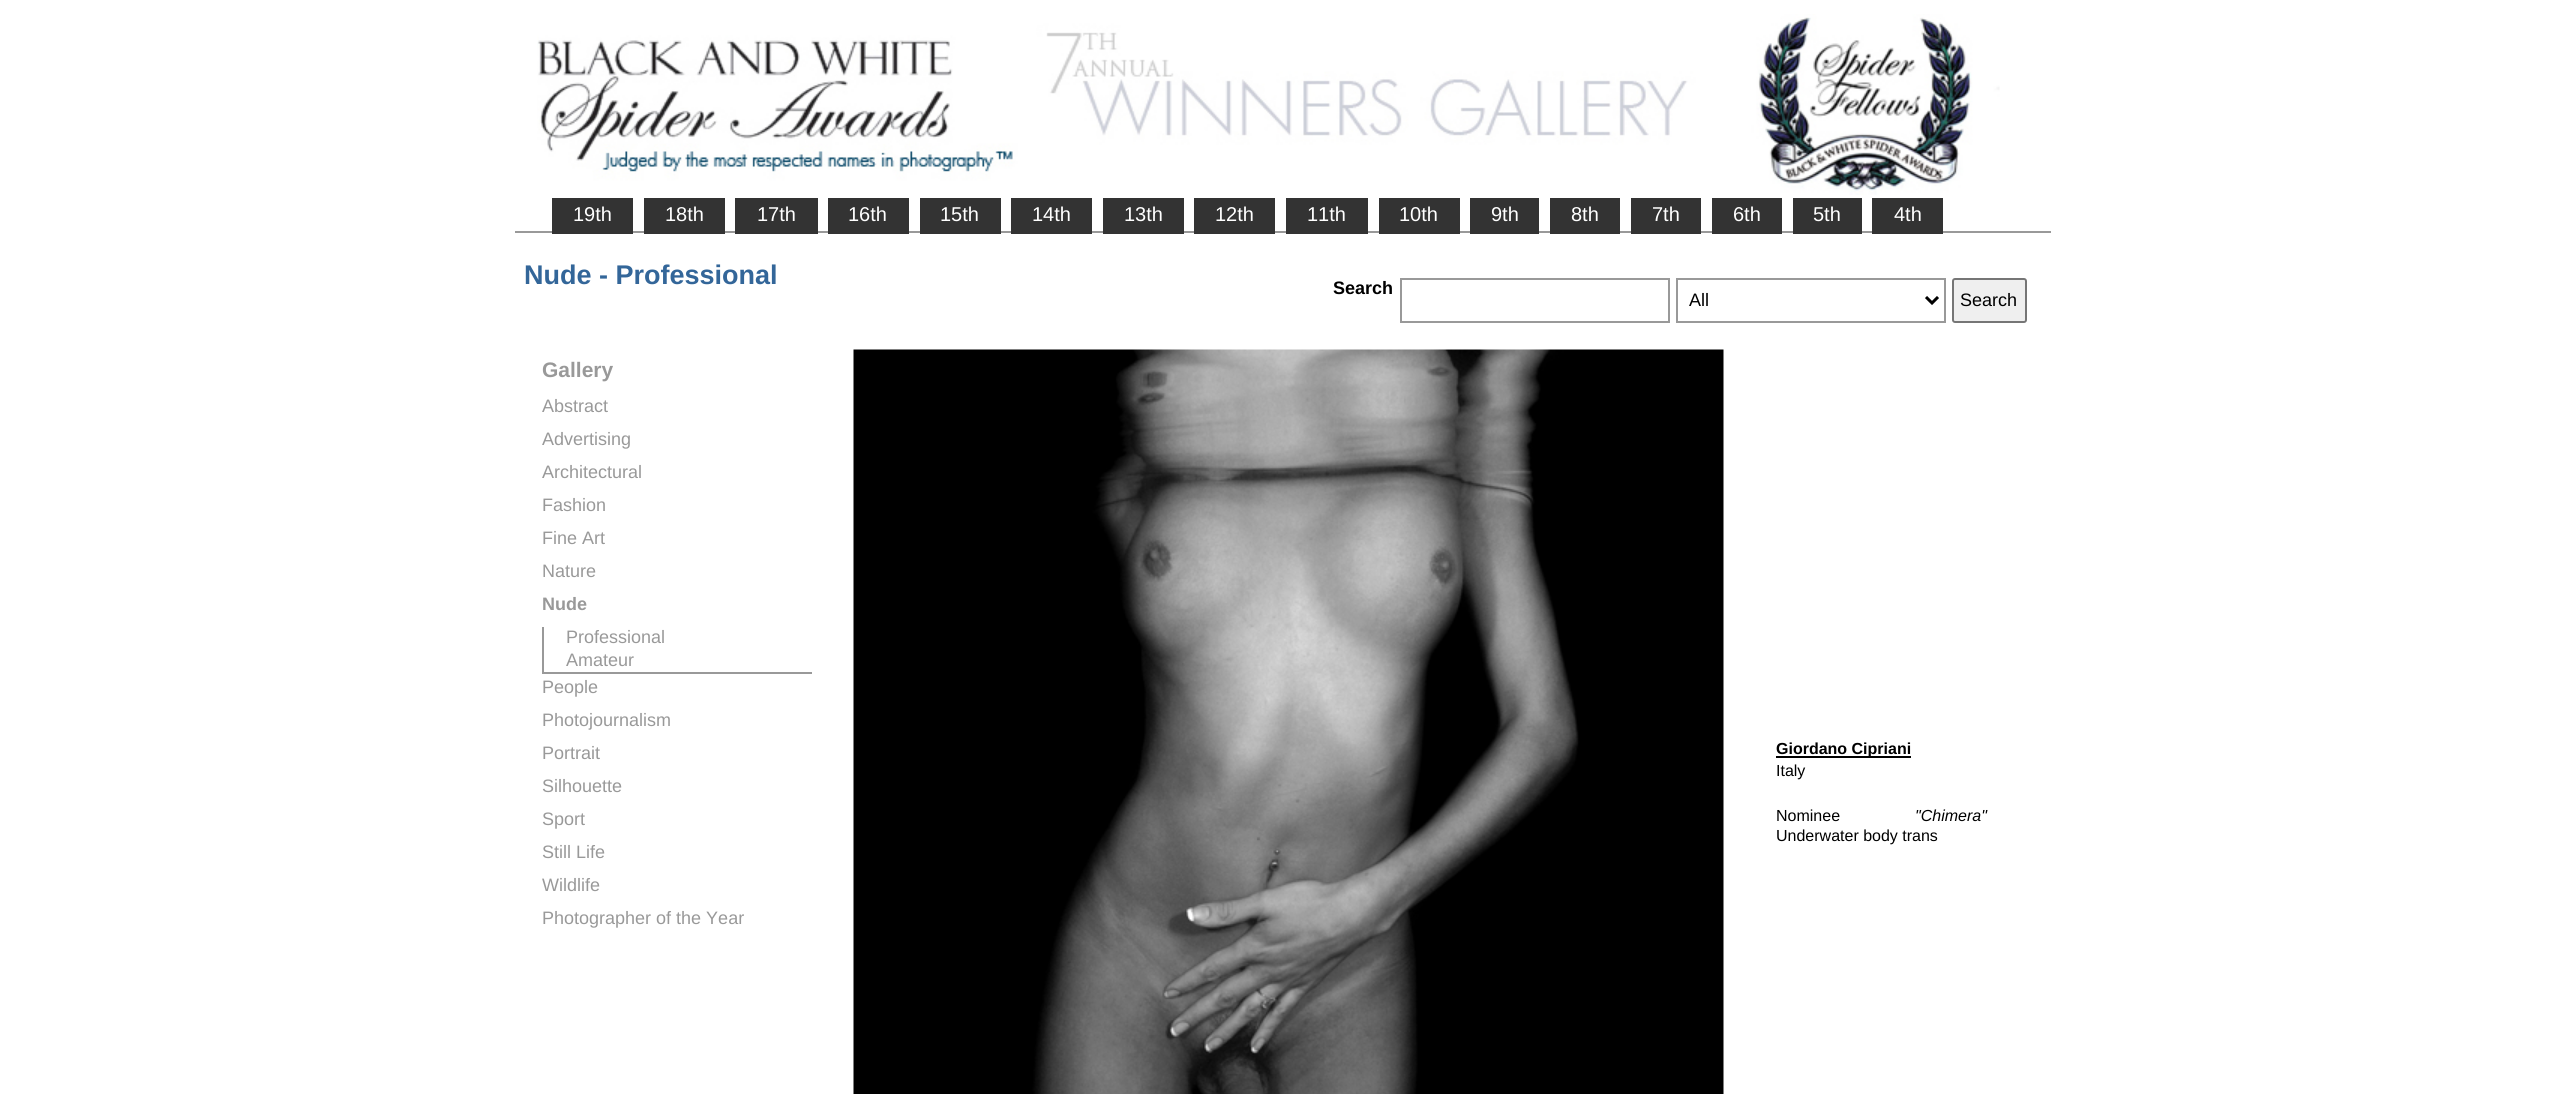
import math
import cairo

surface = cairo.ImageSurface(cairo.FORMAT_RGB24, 2564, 1094)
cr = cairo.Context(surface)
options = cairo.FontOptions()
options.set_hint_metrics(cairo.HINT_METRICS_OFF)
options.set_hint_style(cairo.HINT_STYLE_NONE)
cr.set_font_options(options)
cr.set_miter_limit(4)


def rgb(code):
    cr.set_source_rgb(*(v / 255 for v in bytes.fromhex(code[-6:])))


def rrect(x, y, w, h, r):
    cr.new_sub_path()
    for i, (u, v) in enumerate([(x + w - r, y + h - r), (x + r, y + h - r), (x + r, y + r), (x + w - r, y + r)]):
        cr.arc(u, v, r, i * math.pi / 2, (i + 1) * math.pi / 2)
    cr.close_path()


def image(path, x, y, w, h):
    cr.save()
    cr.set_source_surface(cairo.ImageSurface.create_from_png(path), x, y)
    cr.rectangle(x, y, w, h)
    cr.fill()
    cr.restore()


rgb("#ffffff")
cr.paint()
image("img/1.png", 537, 14, 1463, 181)
for x, y, w, h, color in [
    (515, 231, 1536, 2, "#999999"),
    (552, 198, 81, 36, "#333333"),
    (644, 198, 81, 36, "#333333"),
    (735, 198, 83, 36, "#333333"),
    (828, 198, 81, 36, "#333333"),
    (920, 198, 81, 36, "#333333"),
    (1011, 198, 81, 36, "#333333"),
    (1103, 198, 81, 36, "#333333"),
    (1194, 198, 81, 36, "#333333"),
    (1286, 198, 82, 36, "#333333"),
    (1379, 198, 81, 36, "#333333"),
    (1470, 198, 69, 36, "#333333"),
    (1550, 198, 70, 36, "#333333"),
    (1631, 198, 70, 36, "#333333"),
    (1712, 198, 70, 36, "#333333"),
    (1793, 198, 69, 36, "#333333"),
    (1872, 198, 71, 36, "#333333"),
]:
    rgb(color)
    cr.rectangle(x, y, w, h)
    cr.fill()
cr.rectangle(1401, 279, 268, 43)
rgb("#999999")
cr.stroke()
cr.rectangle(1677, 279, 268, 43)
cr.stroke()
cr.new_path()
cr.move_to(1926, 297)
cr.line_to(1932, 303)
cr.line_to(1938, 297)
rgb("#000000")
cr.set_line_width(3)
cr.stroke()
rgb("#efefef")
rrect(1953, 279, 73, 43, 2)
cr.fill_preserve()
rgb("#767676")
cr.set_line_width(2)
cr.stroke()
rgb("#999999")
cr.rectangle(542, 672, 270, 2)
cr.fill()
cr.rectangle(542, 627, 2, 47)
cr.fill()
image("img/2.png", 853, 349, 871, 745)
rgb("#000000")
cr.rectangle(1776, 756, 135, 2)
cr.fill()
cr.select_font_face("Liberation Sans")
cr.set_font_size(20)
rgb("#ffffff")
for x, y, s in [
    (573, 221, "19th"),
    (665, 221, "18th"),
    (757, 221, "17th"),
    (848, 221, "16th"),
    (940, 221, "15th"),
    (1032, 221, "14th"),
    (1124, 221, "13th"),
    (1215, 221, "12th"),
    (1307, 221, "11th"),
    (1399, 221, "10th"),
    (1491, 221, "9th"),
    (1571, 221, "8th"),
    (1652, 221, "7th"),
    (1733, 221, "6th"),
    (1813, 221, "5th"),
    (1894, 221, "4th"),
]:
    cr.move_to(x, y)
    cr.show_text(s)
cr.select_font_face("Liberation Sans", cairo.FONT_SLANT_NORMAL, cairo.FONT_WEIGHT_BOLD)
cr.set_font_size(27)
rgb("#336699")
cr.move_to(524, 284)
cr.show_text("Nude - Professional")
cr.set_font_size(18)
rgb("#000000")
cr.move_to(1333, 294)
cr.show_text("Search")
cr.select_font_face("Liberation Sans")
cr.move_to(1689, 306)
cr.show_text("All")
cr.move_to(1960, 306)
cr.show_text("Search")
cr.select_font_face("Liberation Sans", cairo.FONT_SLANT_NORMAL, cairo.FONT_WEIGHT_BOLD)
cr.set_font_size(21)
rgb("#999999")
cr.move_to(542, 377)
cr.show_text("Gallery")
cr.select_font_face("Liberation Sans")
cr.set_font_size(18)
for x, y, s in [
    (542, 412, "Abstract"),
    (542, 445, "Advertising"),
    (542, 478, "Architectural"),
    (542, 511, "Fashion"),
    (542, 544, "Fine Art"),
    (542, 577, "Nature"),
]:
    cr.move_to(x, y)
    cr.show_text(s)
cr.select_font_face("Liberation Sans", cairo.FONT_SLANT_NORMAL, cairo.FONT_WEIGHT_BOLD)
cr.move_to(542, 610)
cr.show_text("Nude")
cr.select_font_face("Liberation Sans")
for x, y, s in [
    (566, 643, "Professional"),
    (566, 666, "Amateur"),
    (542, 693, "People"),
    (542, 726, "Photojournalism"),
    (542, 759, "Portrait"),
    (542, 792, "Silhouette"),
    (542, 825, "Sport"),
    (542, 858, "Still Life"),
    (542, 891, "Wildlife"),
    (542, 924, "Photographer of the Year"),
]:
    cr.move_to(x, y)
    cr.show_text(s)
cr.select_font_face("Liberation Sans", cairo.FONT_SLANT_NORMAL, cairo.FONT_WEIGHT_BOLD)
cr.set_font_size(16)
rgb("#000000")
cr.move_to(1776, 754)
cr.show_text("Giordano Cipriani")
cr.select_font_face("Liberation Sans")
cr.move_to(1776, 776)
cr.show_text("Italy")
cr.move_to(1776, 821)
cr.show_text("Nominee")
cr.select_font_face("Liberation Sans", cairo.FONT_SLANT_ITALIC)
cr.move_to(1915, 821)
cr.show_text("\"Chimera\"")
cr.select_font_face("Liberation Sans")
cr.move_to(1776, 841)
cr.show_text("Underwater body trans")
surface.write_to_png("page.png")
